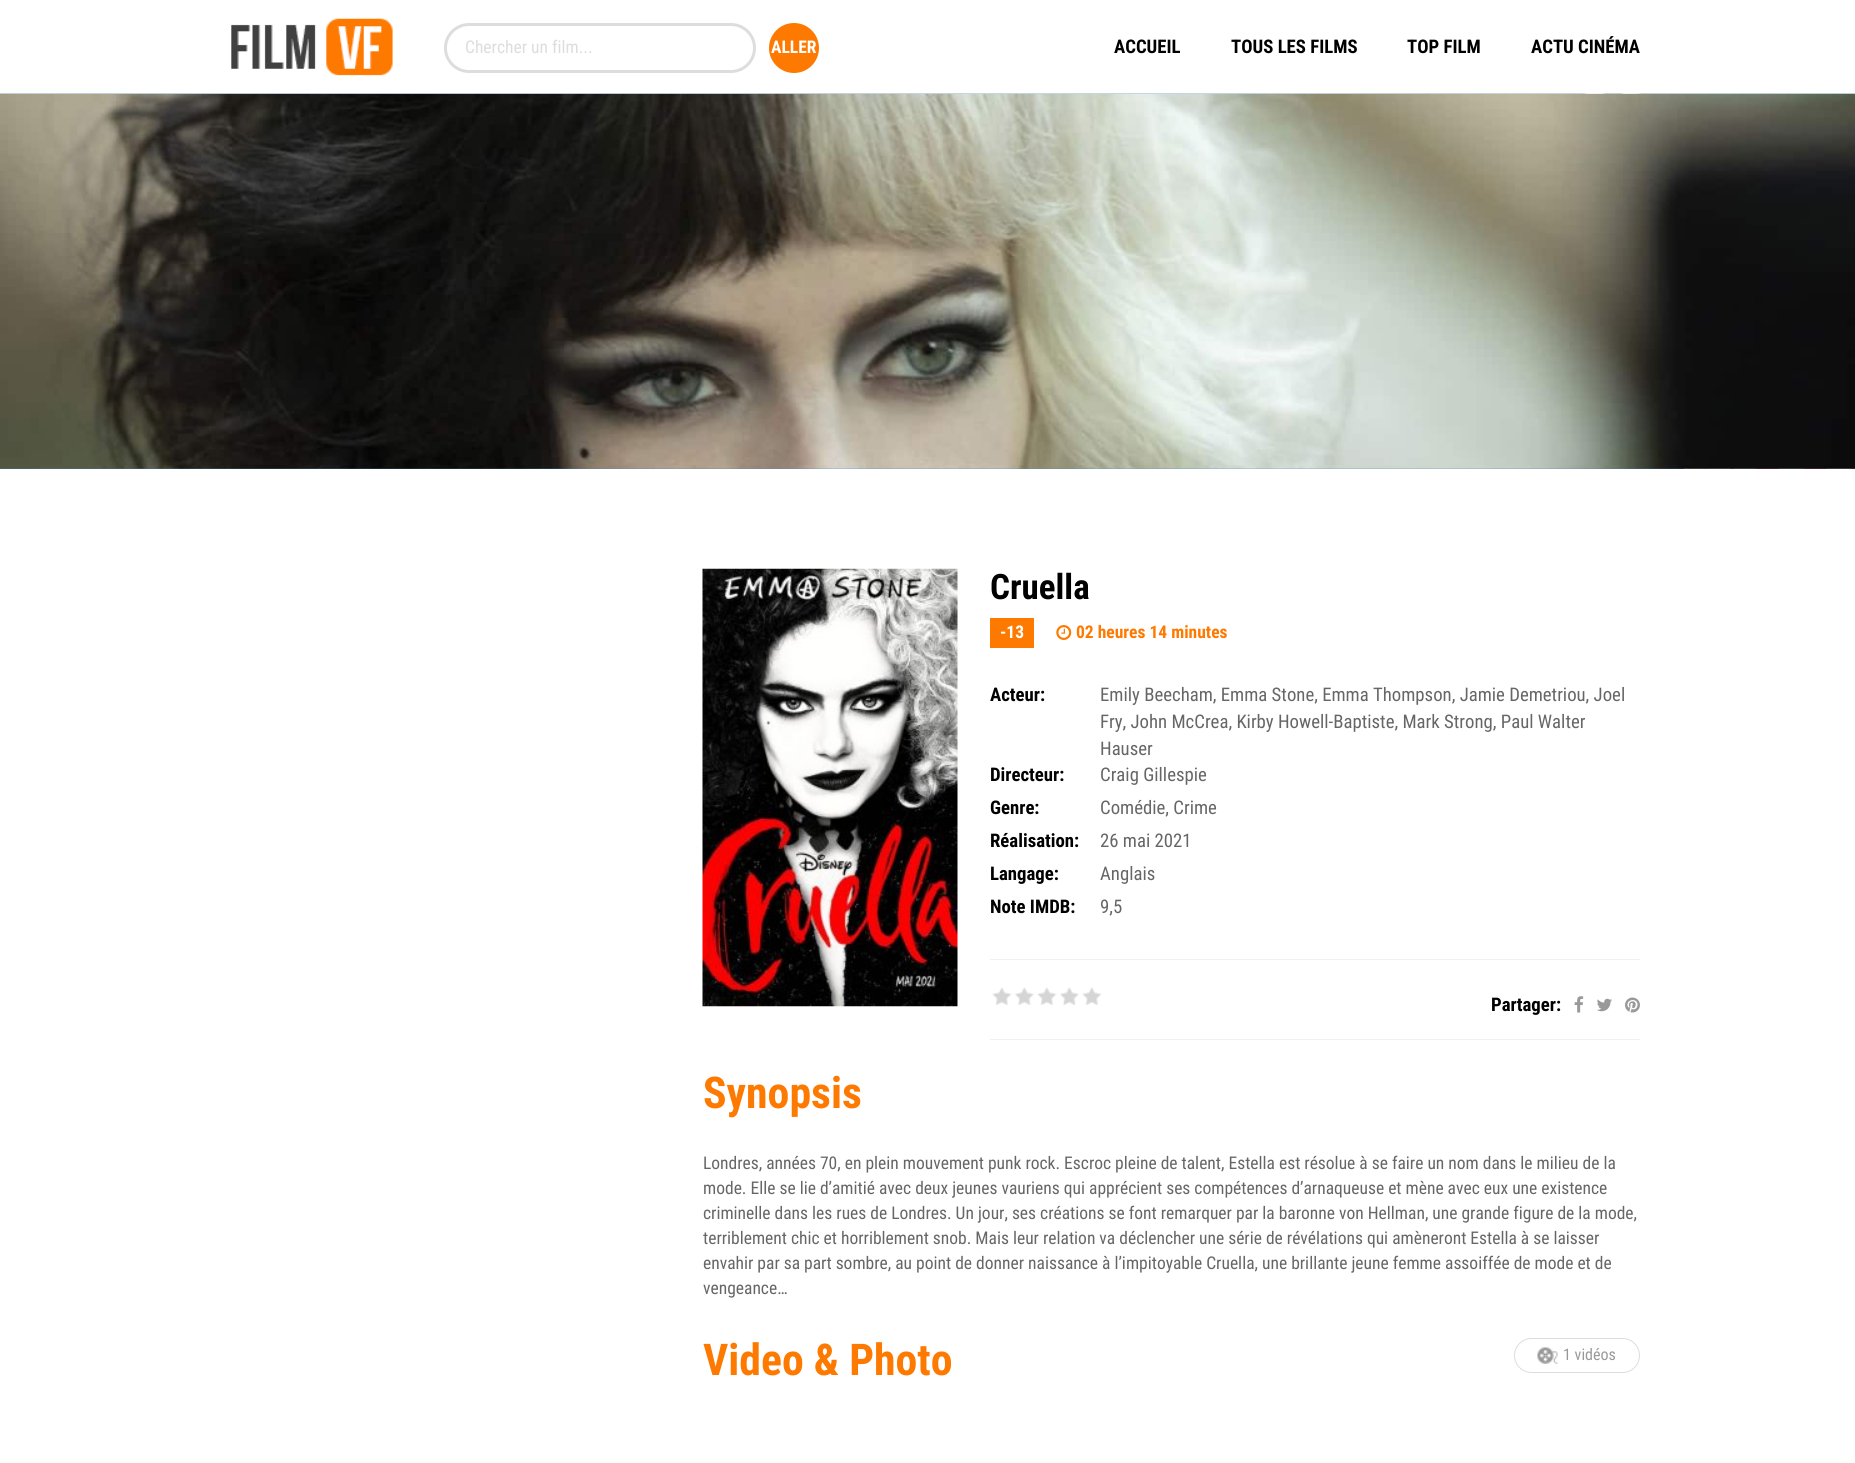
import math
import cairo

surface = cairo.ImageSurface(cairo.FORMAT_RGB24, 1855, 1463)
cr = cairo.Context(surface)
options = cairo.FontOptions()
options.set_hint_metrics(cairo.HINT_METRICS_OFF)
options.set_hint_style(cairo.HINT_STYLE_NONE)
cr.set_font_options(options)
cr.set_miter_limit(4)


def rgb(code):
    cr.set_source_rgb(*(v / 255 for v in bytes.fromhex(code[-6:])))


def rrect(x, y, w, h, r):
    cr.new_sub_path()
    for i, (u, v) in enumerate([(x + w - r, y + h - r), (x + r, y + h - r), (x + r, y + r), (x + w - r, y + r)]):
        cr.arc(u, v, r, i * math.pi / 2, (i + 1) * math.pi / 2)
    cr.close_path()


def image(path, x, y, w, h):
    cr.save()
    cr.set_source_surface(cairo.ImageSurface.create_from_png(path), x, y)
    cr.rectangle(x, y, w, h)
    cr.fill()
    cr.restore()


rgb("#ffffff")
cr.paint()
image("img/1.png", 231, 18, 162, 58)
rrect(445.5, 24.5, 309, 47, 23.5)
rgb("#dddddd")
cr.set_line_width(3)
cr.stroke()
rgb("#fe7900")
cr.arc(794, 48, 25, 0, 2 * math.pi)
cr.fill()
image("img/2.png", 0, 93, 1855, 376)
image("img/3.png", 0, 93, 1855, 376)
image("img/4.png", 702, 568, 256, 439)
cr.rectangle(990, 618, 44, 30)
cr.fill()
image("img/5.png", 1056, 625, 16, 15)
rgb("#f1f1f1")
cr.rectangle(990, 959, 650, 1)
cr.fill()
cr.rectangle(990, 1039, 650, 1)
cr.fill()
image("img/6.png", 992, 987, 110, 18)
image("img/7.png", 1574, 996, 10, 17)
image("img/8.png", 1597, 998, 15, 14)
image("img/9.png", 1625, 997, 15, 16)
rrect(1514.5, 1338.5, 125, 34, 17)
rgb("#dddddd")
cr.set_line_width(1)
cr.stroke()
image("img/10.png", 1537, 1347, 21, 17)
cr.select_font_face("Roboto Condensed")
cr.set_font_size(17.5)
cr.move_to(465, 53)
cr.show_text("Chercher un film...")
cr.select_font_face("Roboto Condensed", cairo.FONT_SLANT_NORMAL, cairo.FONT_WEIGHT_BOLD)
rgb("#ffffff")
cr.move_to(771, 53)
cr.show_text("ALLER")
cr.set_font_size(18.75)
rgb("#000000")
for x, y, s in [
    (1114, 53, "ACCUEIL"),
    (1231, 53, "TOUS LES FILMS"),
    (1407, 53, "TOP FILM"),
    (1531, 53, "ACTU CINÉMA"),
]:
    cr.move_to(x, y)
    cr.show_text(s)
cr.set_font_size(35)
cr.move_to(990, 599)
cr.show_text("Cruella")
cr.set_font_size(17.5)
rgb("#ffffff")
cr.move_to(1000, 638)
cr.show_text("-13")
rgb("#fe7900")
cr.move_to(1076, 638)
cr.show_text("02 heures 14 minutes")
cr.set_font_size(18.75)
rgb("#000000")
cr.move_to(990, 701)
cr.show_text("Acteur:")
cr.select_font_face("Roboto Condensed")
rgb("#666666")
for x, y, s in [
    (1100, 701, "Emily Beecham, Emma Stone, Emma Thompson, Jamie Demetriou, Joel"),
    (1100, 728, "Fry, John McCrea, Kirby Howell-Baptiste, Mark Strong, Paul Walter"),
    (1100, 755, "Hauser"),
]:
    cr.move_to(x, y)
    cr.show_text(s)
cr.select_font_face("Roboto Condensed", cairo.FONT_SLANT_NORMAL, cairo.FONT_WEIGHT_BOLD)
rgb("#000000")
cr.move_to(990, 781)
cr.show_text("Directeur:")
cr.select_font_face("Roboto Condensed")
rgb("#666666")
cr.move_to(1100, 781)
cr.show_text("Craig Gillespie")
cr.select_font_face("Roboto Condensed", cairo.FONT_SLANT_NORMAL, cairo.FONT_WEIGHT_BOLD)
rgb("#000000")
cr.move_to(990, 814)
cr.show_text("Genre:")
cr.select_font_face("Roboto Condensed")
rgb("#666666")
cr.move_to(1100, 814)
cr.show_text("Comédie, Crime")
cr.select_font_face("Roboto Condensed", cairo.FONT_SLANT_NORMAL, cairo.FONT_WEIGHT_BOLD)
rgb("#000000")
cr.move_to(990, 847)
cr.show_text("Réalisation:")
cr.select_font_face("Roboto Condensed")
rgb("#666666")
cr.move_to(1100, 847)
cr.show_text("26 mai 2021")
cr.select_font_face("Roboto Condensed", cairo.FONT_SLANT_NORMAL, cairo.FONT_WEIGHT_BOLD)
rgb("#000000")
cr.move_to(990, 880)
cr.show_text("Langage:")
cr.select_font_face("Roboto Condensed")
rgb("#666666")
cr.move_to(1100, 880)
cr.show_text("Anglais")
cr.select_font_face("Roboto Condensed", cairo.FONT_SLANT_NORMAL, cairo.FONT_WEIGHT_BOLD)
rgb("#000000")
cr.move_to(990, 913)
cr.show_text("Note IMDB:")
cr.select_font_face("Roboto Condensed")
rgb("#666666")
cr.move_to(1100, 913)
cr.show_text("9,5")
cr.select_font_face("Roboto Condensed", cairo.FONT_SLANT_NORMAL, cairo.FONT_WEIGHT_BOLD)
rgb("#000000")
cr.move_to(1491, 1011)
cr.show_text("Partager:")
cr.set_font_size(43.75)
rgb("#fe7900")
cr.move_to(703, 1108)
cr.show_text("Synopsis")
cr.select_font_face("Roboto Condensed")
cr.set_font_size(17.5)
rgb("#666666")
for x, y, s in [
    (703, 1169, "Londres, années 70, en plein mouvement punk rock. Escroc pleine de talent, Estella est résolue à se faire un nom dans le milieu de la"),
    (703, 1194, "mode. Elle se lie d’amitié avec deux jeunes vauriens qui apprécient ses compétences d’arnaqueuse et mène avec eux une existence"),
    (703, 1219, "criminelle dans les rues de Londres. Un jour, ses créations se font remarquer par la baronne von Hellman, une grande figure de la mode,"),
    (703, 1244, "terriblement chic et horriblement snob. Mais leur relation va déclencher une série de révélations qui amèneront Estella à se laisser"),
    (703, 1269, "envahir par sa part sombre, au point de donner naissance à l’impitoyable Cruella, une brillante jeune femme assoiffée de mode et de"),
    (703, 1294, "vengeance…"),
]:
    cr.move_to(x, y)
    cr.show_text(s)
cr.select_font_face("Roboto Condensed", cairo.FONT_SLANT_NORMAL, cairo.FONT_WEIGHT_BOLD)
cr.set_font_size(43.75)
rgb("#fe7900")
cr.move_to(703, 1375)
cr.show_text("Video & Photo")
cr.select_font_face("Roboto Condensed")
cr.set_font_size(16)
rgb("#999999")
cr.move_to(1563, 1360)
cr.show_text("1 vidéos")
surface.write_to_png("page.png")
